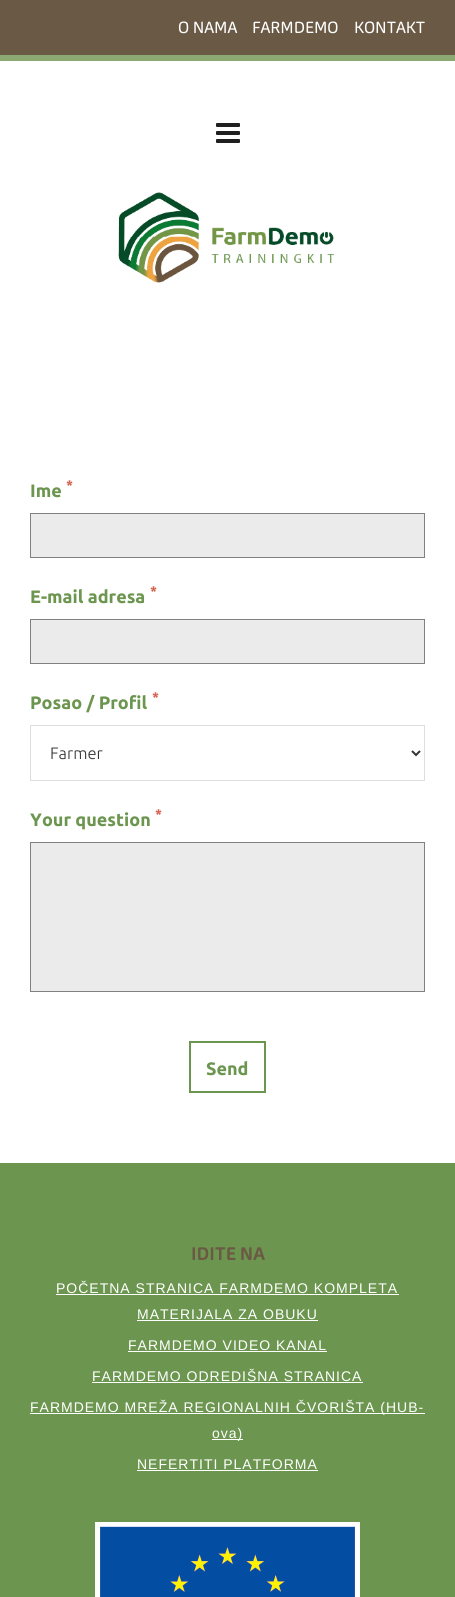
import math
import cairo

surface = cairo.ImageSurface(cairo.FORMAT_RGB24, 455, 1597)
cr = cairo.Context(surface)
options = cairo.FontOptions()
options.set_hint_metrics(cairo.HINT_METRICS_OFF)
options.set_hint_style(cairo.HINT_STYLE_NONE)
cr.set_font_options(options)
cr.set_miter_limit(4)


def rgb(code):
    cr.set_source_rgb(*(v / 255 for v in bytes.fromhex(code[-6:])))


def tracked(x, y, s, letter, word):
    cr.move_to(x, y)
    for ch in s:
        cr.show_text(ch)
        cr.rel_move_to(letter + word * (ch == ' '), 0)


def image(path, x, y, w, h):
    cr.save()
    cr.set_source_surface(cairo.ImageSurface.create_from_png(path), x, y)
    cr.rectangle(x, y, w, h)
    cr.fill()
    cr.restore()


rgb("#ffffff")
cr.paint()
rgb("#6a5945")
cr.rectangle(0, 0, 455, 55)
cr.fill()
rgb("#8ca974")
cr.rectangle(0, 55, 455, 6)
cr.fill()
image("img/1.png", 216, 123, 24, 20)
image("img/2.png", 118, 192, 216, 91)
rgb("#ebebeb")
cr.rectangle(30.5, 513.5, 394, 44)
cr.fill_preserve()
rgb("#808080")
cr.set_line_width(1)
cr.stroke()
rgb("#ebebeb")
cr.rectangle(30.5, 619.5, 394, 44)
cr.fill_preserve()
rgb("#808080")
cr.stroke()
cr.rectangle(30.5, 725.5, 394, 55)
rgb("#dedede")
cr.stroke()
cr.new_path()
cr.move_to(412, 751)
cr.line_to(416, 755)
cr.line_to(420, 751)
rgb("#333333")
cr.set_line_width(2)
cr.stroke()
rgb("#ebebeb")
cr.rectangle(30.5, 842.5, 394, 149)
cr.fill_preserve()
rgb("#808080")
cr.set_line_width(1)
cr.stroke()
cr.rectangle(190, 1042, 75, 50)
rgb("#6c964f")
cr.set_line_width(2)
cr.stroke()
for x, y, w, h, color in [
    (0, 1163, 455, 434, "#6c964f"),
    (56, 1294, 343, 1, "#ffffff"),
    (137, 1320, 181, 1, "#ffffff"),
    (128, 1351, 199, 1, "#ffffff"),
    (92, 1382, 271, 1, "#ffffff"),
    (30, 1413, 395, 1, "#ffffff"),
    (212, 1439, 31, 1, "#ffffff"),
    (137, 1470, 181, 1, "#ffffff"),
]:
    rgb(color)
    cr.rectangle(x, y, w, h)
    cr.fill()
image("img/3.png", 95, 1522, 265, 75)
cr.select_font_face("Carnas")
cr.set_font_size(16)
for x, y, s in [
    (178, 33, "O NAMA"),
    (252, 33, "FARMDEMO"),
    (354, 33, "KONTAKT"),
]:
    cr.move_to(x, y)
    cr.show_text(s)
cr.select_font_face("Ubuntu", cairo.FONT_SLANT_NORMAL, cairo.FONT_WEIGHT_BOLD)
cr.set_font_size(18)
rgb("#6c964f")
cr.move_to(30, 497)
cr.show_text("Ime")
cr.set_font_size(14)
rgb("#d3604d")
cr.move_to(66, 490)
cr.show_text("*")
cr.set_font_size(18)
rgb("#6c964f")
cr.move_to(30, 603)
cr.show_text("E-mail adresa")
cr.set_font_size(14)
rgb("#d3604d")
cr.move_to(150, 596)
cr.show_text("*")
cr.set_font_size(18)
rgb("#6c964f")
cr.move_to(30, 709)
cr.show_text("Posao / Profil")
cr.set_font_size(14)
rgb("#d3604d")
cr.move_to(152, 702)
cr.show_text("*")
cr.select_font_face("Ubuntu Light")
cr.set_font_size(16.5)
rgb("#333333")
cr.move_to(50, 759)
cr.show_text("Farmer")
cr.select_font_face("Ubuntu", cairo.FONT_SLANT_NORMAL, cairo.FONT_WEIGHT_BOLD)
cr.set_font_size(18)
rgb("#6c964f")
cr.move_to(30, 826)
cr.show_text("Your question")
cr.set_font_size(14)
rgb("#d3604d")
cr.move_to(155, 819)
cr.show_text("*")
cr.set_font_size(18)
rgb("#6c964f")
cr.move_to(206, 1075)
cr.show_text("Send")
cr.select_font_face("Carnas", cairo.FONT_SLANT_NORMAL, cairo.FONT_WEIGHT_BOLD)
rgb("#6a5944")
cr.move_to(191, 1260)
cr.show_text("IDITE NA")
cr.select_font_face("Liberation Sans")
cr.set_font_size(14)
rgb("#ffffff")
for x, y, s in [
    (56, 1293, "POČETNA STRANICA FARMDEMO KOMPLETA"),
    (137, 1319, "MATERIJALA ZA OBUKU"),
    (128, 1350, "FARMDEMO VIDEO KANAL"),
    (92, 1381, "FARMDEMO ODREDIŠNA STRANICA"),
    (30, 1412, "FARMDEMO MREŽA REGIONALNIH ČVORIŠTA (HUB-"),
    (212, 1438, "ova)"),
    (137, 1469, "NEFERTITI PLATFORMA"),
]:
    tracked(x, y, s, 1, 0)
surface.write_to_png("page.png")
